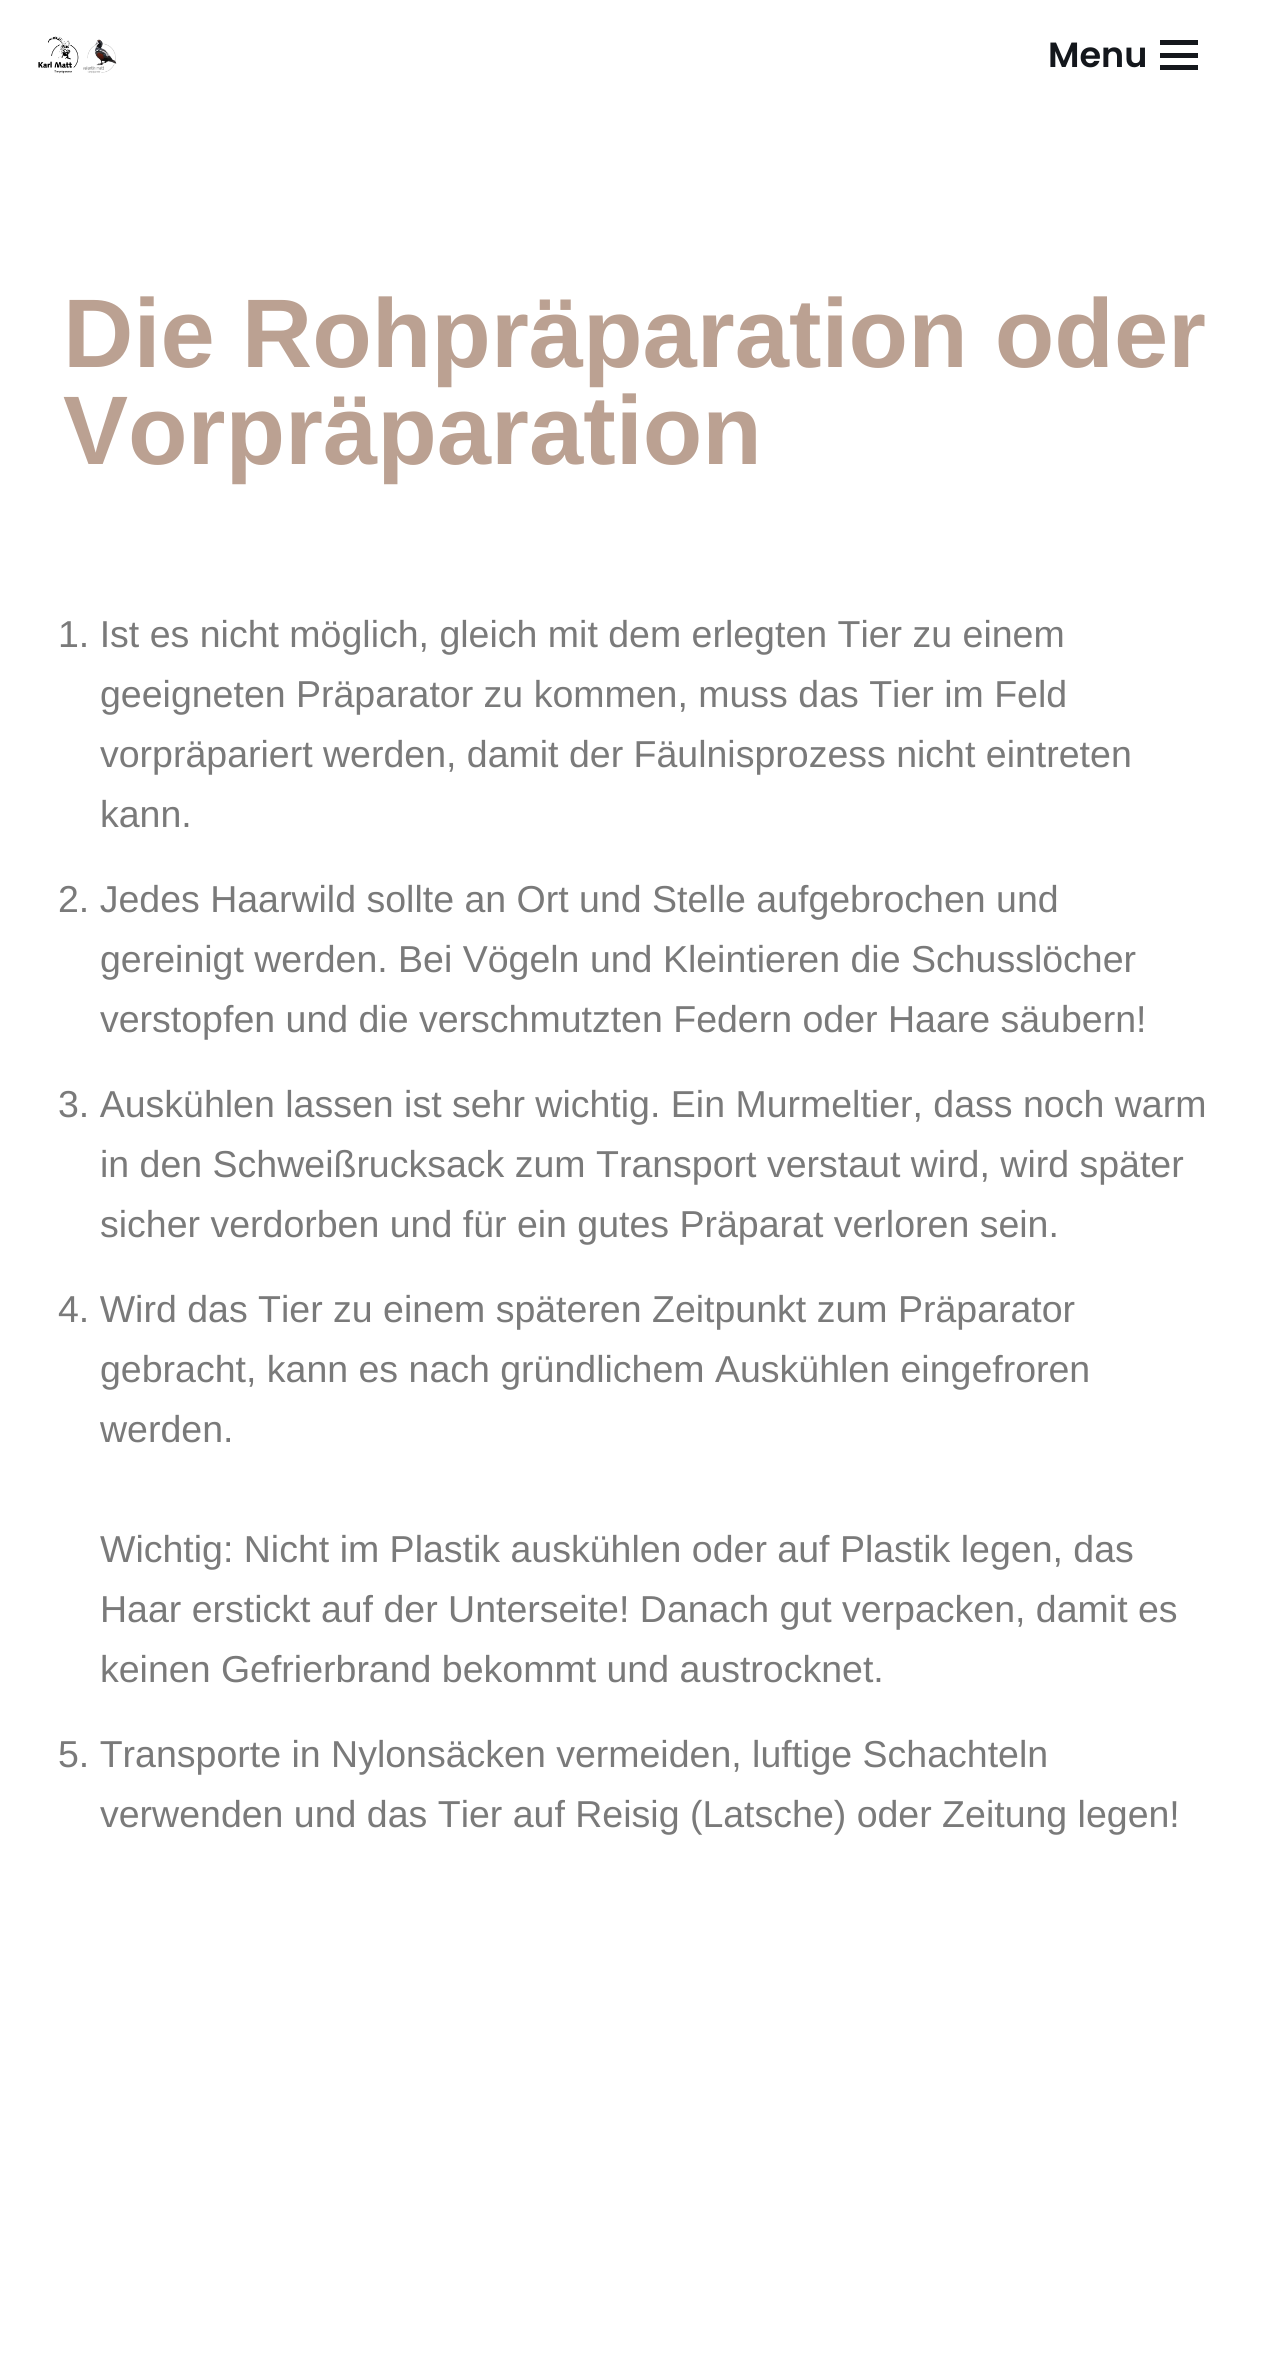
import math
import cairo

surface = cairo.ImageSurface(cairo.FORMAT_RGB24, 1271, 2363)
cr = cairo.Context(surface)
options = cairo.FontOptions()
options.set_hint_metrics(cairo.HINT_METRICS_OFF)
options.set_hint_style(cairo.HINT_STYLE_NONE)
cr.set_font_options(options)
cr.set_miter_limit(4)


def rgb(code):
    cr.set_source_rgb(*(v / 255 for v in bytes.fromhex(code[-6:])))


def image(path, x, y, w, h):
    cr.save()
    cr.set_source_surface(cairo.ImageSurface.create_from_png(path), x, y)
    cr.rectangle(x, y, w, h)
    cr.fill()
    cr.restore()


rgb("#ffffff")
cr.paint()
image("img/1.png", 38, 36, 79, 38)
for x, y, w, h, color in [
    (1160, 40, 38, 5, "#14171c"),
    (1160, 53, 38, 5, "#14171c"),
    (1160, 65, 38, 5, "#14171c"),
]:
    rgb(color)
    cr.rectangle(x, y, w, h)
    cr.fill()
cr.select_font_face("Poppins SemiBold")
cr.set_font_size(35)
cr.move_to(1048, 67)
cr.show_text("Menu")
cr.select_font_face("Liberation Sans", cairo.FONT_SLANT_NORMAL, cairo.FONT_WEIGHT_BOLD)
cr.set_font_size(97.5)
rgb("#bba192")
cr.move_to(63, 367)
cr.show_text("Die Rohpräparation oder")
cr.move_to(63, 464)
cr.show_text("Vorpräparation")
cr.select_font_face("Liberation Sans")
cr.set_font_size(37.5)
rgb("#7a7a7a")
for x, y, s in [
    (58, 647, "1. Ist es nicht möglich, gleich mit dem erlegten Tier zu einem"),
    (100, 707, "geeigneten Präparator zu kommen, muss das Tier im Feld"),
    (100, 767, "vorpräpariert werden, damit der Fäulnisprozess nicht eintreten"),
    (100, 827, "kann."),
    (58, 912, "2. Jedes Haarwild sollte an Ort und Stelle aufgebrochen und"),
    (100, 972, "gereinigt werden. Bei Vögeln und Kleintieren die Schusslöcher"),
    (100, 1032, "verstopfen und die verschmutzten Federn oder Haare säubern!"),
    (58, 1117, "3. Auskühlen lassen ist sehr wichtig. Ein Murmeltier, dass noch warm"),
    (100, 1177, "in den Schweißrucksack zum Transport verstaut wird, wird später"),
    (100, 1237, "sicher verdorben und für ein gutes Präparat verloren sein."),
    (58, 1322, "4. Wird das Tier zu einem späteren Zeitpunkt zum Präparator"),
    (100, 1382, "gebracht, kann es nach gründlichem Auskühlen eingefroren"),
    (100, 1442, "werden."),
    (100, 1562, "Wichtig: Nicht im Plastik auskühlen oder auf Plastik legen, das"),
    (100, 1622, "Haar erstickt auf der Unterseite! Danach gut verpacken, damit es"),
    (100, 1682, "keinen Gefrierbrand bekommt und austrocknet."),
    (58, 1767, "5. Transporte in Nylonsäcken vermeiden, luftige Schachteln"),
    (100, 1827, "verwenden und das Tier auf Reisig (Latsche) oder Zeitung legen!"),
]:
    cr.move_to(x, y)
    cr.show_text(s)
surface.write_to_png("page.png")
